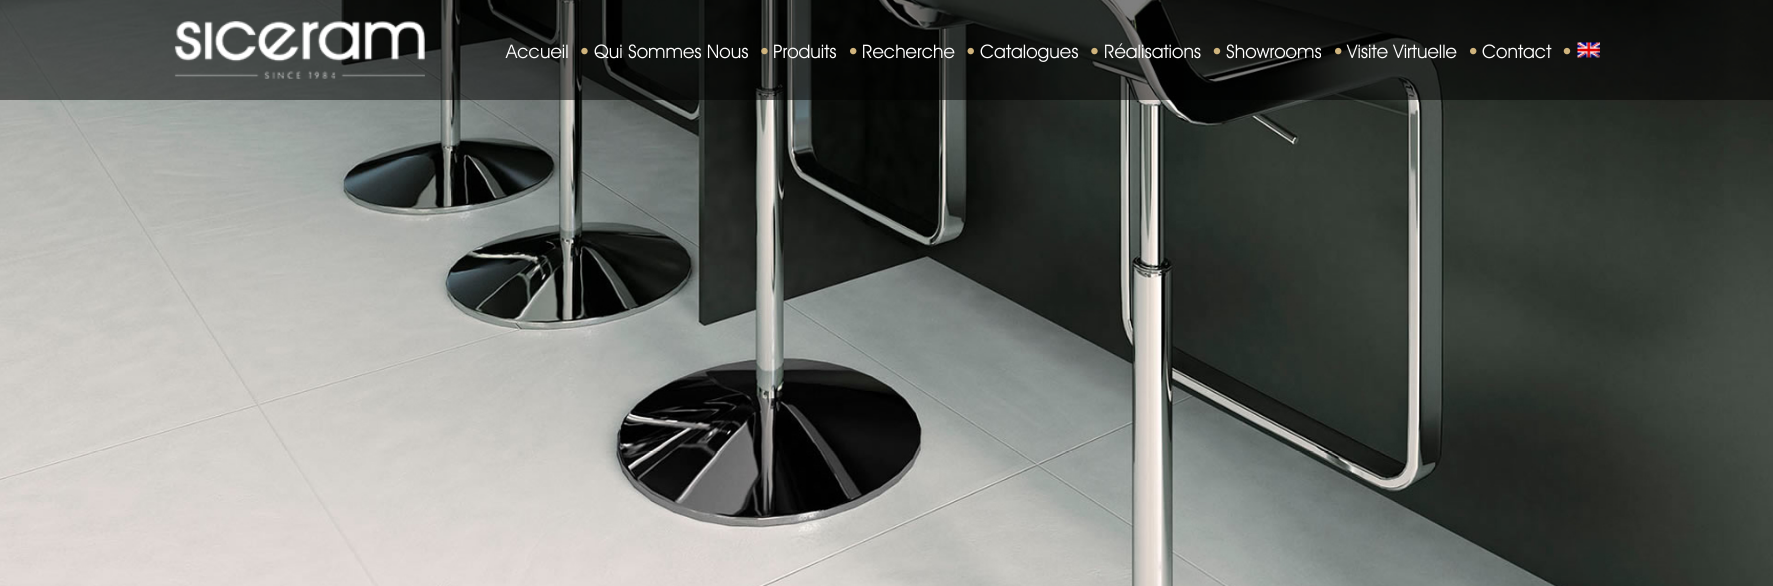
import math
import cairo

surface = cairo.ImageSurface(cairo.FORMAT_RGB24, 1773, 586)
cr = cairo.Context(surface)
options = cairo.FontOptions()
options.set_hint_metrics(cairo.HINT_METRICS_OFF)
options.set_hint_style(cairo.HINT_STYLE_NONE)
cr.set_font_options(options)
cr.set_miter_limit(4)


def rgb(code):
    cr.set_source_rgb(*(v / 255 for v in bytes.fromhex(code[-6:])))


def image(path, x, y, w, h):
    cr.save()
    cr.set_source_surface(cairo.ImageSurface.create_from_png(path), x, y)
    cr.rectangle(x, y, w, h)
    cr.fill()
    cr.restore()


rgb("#ffffff")
cr.paint()
image("img/1.png", 0, 0, 1773, 586)
cr.set_source_rgba(0, 0, 0, 0.5)
cr.rectangle(0, 0, 1773, 100)
cr.fill()
image("img/2.png", 174, 21, 251, 58)
image("img/3.png", 581, 47, 7, 8)
image("img/4.png", 761, 47, 7, 8)
image("img/5.png", 850, 47, 7, 8)
image("img/6.png", 967, 47, 7, 8)
image("img/7.png", 1091, 47, 7, 8)
image("img/8.png", 1213, 47, 8, 8)
image("img/9.png", 1335, 47, 7, 8)
image("img/10.png", 1470, 47, 7, 8)
image("img/11.png", 1563, 47, 8, 8)
image("img/12.png", 1577, 42, 23, 16)
cr.select_font_face("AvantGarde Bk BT")
cr.set_font_size(18.75)
rgb("#ffffff")
for x, y, s in [
    (506, 58, "Accueil"),
    (594, 58, "Qui Sommes Nous"),
    (773, 58, "Produits"),
    (862, 58, "Recherche"),
    (980, 58, "Catalogues"),
    (1104, 58, "Réalisations"),
    (1226, 58, "Showrooms"),
    (1347, 58, "Visite Virtuelle"),
    (1482, 58, "Contact"),
]:
    cr.move_to(x, y)
    cr.show_text(s)
surface.write_to_png("page.png")
